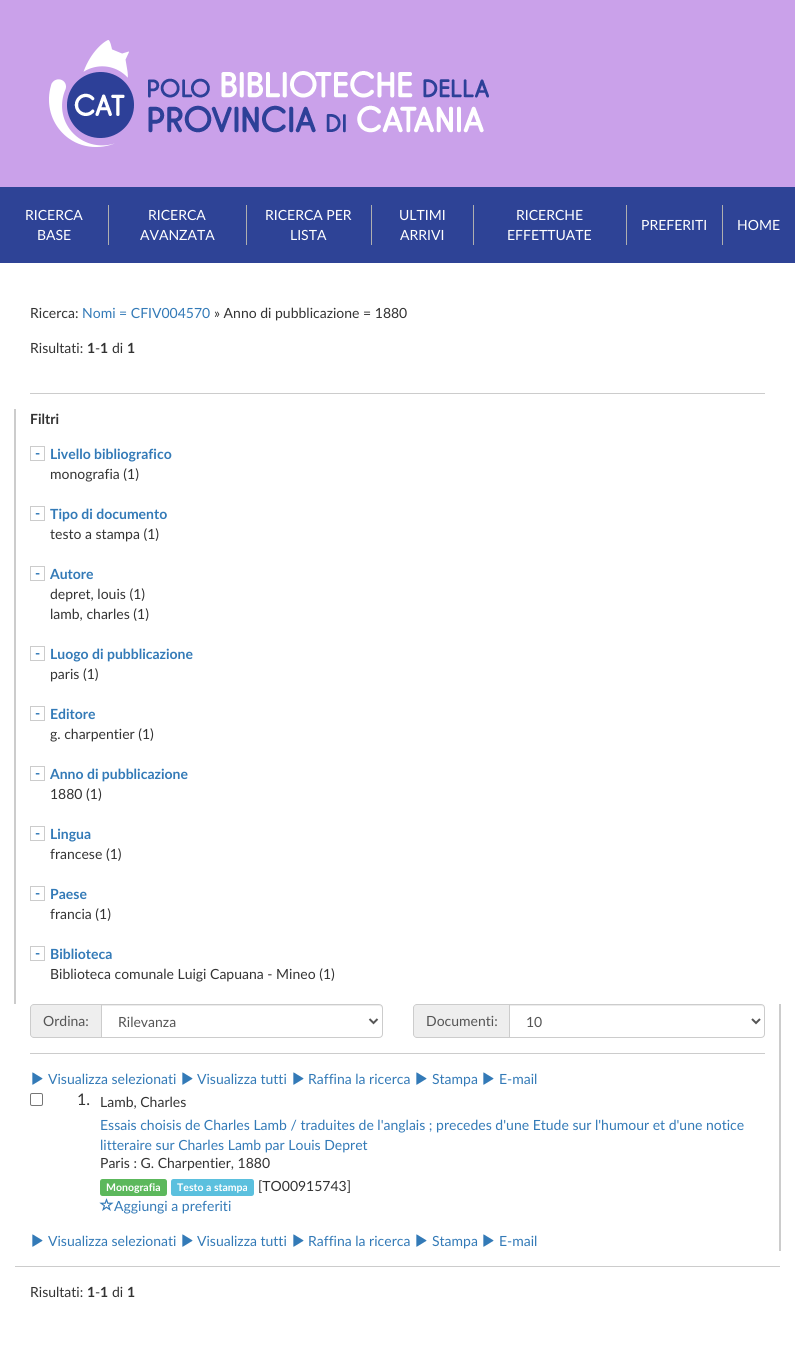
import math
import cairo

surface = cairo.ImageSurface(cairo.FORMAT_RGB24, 795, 1358)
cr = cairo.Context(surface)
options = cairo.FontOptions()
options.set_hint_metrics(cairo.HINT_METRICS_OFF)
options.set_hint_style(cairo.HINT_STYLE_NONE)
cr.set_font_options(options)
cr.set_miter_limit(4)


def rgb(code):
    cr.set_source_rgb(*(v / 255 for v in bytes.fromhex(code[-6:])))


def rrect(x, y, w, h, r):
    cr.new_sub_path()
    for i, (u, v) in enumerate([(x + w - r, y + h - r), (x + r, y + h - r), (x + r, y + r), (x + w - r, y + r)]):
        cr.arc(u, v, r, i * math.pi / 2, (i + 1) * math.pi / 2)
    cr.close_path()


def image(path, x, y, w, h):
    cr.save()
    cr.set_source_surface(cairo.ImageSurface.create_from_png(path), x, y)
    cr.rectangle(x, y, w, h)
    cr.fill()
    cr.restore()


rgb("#ffffff")
cr.paint()
rgb("#caa1ea")
cr.rectangle(0, 0, 795, 187)
cr.fill()
rgb("#2e4396")
cr.rectangle(0, 187, 795, 76)
cr.fill()
image("img/1.png", 49, 40, 440, 107)
for x, y, w, h, color in [
    (108, 205, 1, 40, "#afafaf"),
    (246, 205, 1, 40, "#afafaf"),
    (371, 205, 1, 40, "#afafaf"),
    (473, 205, 1, 40, "#afafaf"),
    (626, 205, 1, 40, "#afafaf"),
    (722, 205, 1, 40, "#afafaf"),
    (30, 393, 735, 1, "#cccccc"),
    (14, 409, 2, 595, "#cccccc"),
]:
    rgb(color)
    cr.rectangle(x, y, w, h)
    cr.fill()
cr.rectangle(30.5, 446.5, 14, 14)
cr.set_line_width(1)
cr.stroke()
cr.rectangle(30.5, 506.5, 14, 14)
cr.stroke()
cr.rectangle(30.5, 566.5, 14, 14)
cr.stroke()
cr.rectangle(30.5, 646.5, 14, 14)
cr.stroke()
cr.rectangle(30.5, 706.5, 14, 14)
cr.stroke()
cr.rectangle(30.5, 766.5, 14, 14)
cr.stroke()
cr.rectangle(30.5, 826.5, 14, 14)
cr.stroke()
cr.rectangle(30.5, 886.5, 14, 14)
cr.stroke()
cr.rectangle(30.5, 946.5, 14, 14)
cr.stroke()
cr.rectangle(30, 1053, 735, 1)
cr.fill()
rgb("#eeeeee")
cr.new_path()
cr.move_to(34, 1004)
cr.line_to(101, 1004)
cr.line_to(101, 1038)
cr.line_to(34, 1038)
cr.curve_to(32, 1038, 30, 1036, 30, 1034)
cr.line_to(30, 1008)
cr.curve_to(30, 1006, 32, 1004, 34, 1004)
cr.close_path()
cr.fill()
rgb("#cccccc")
cr.set_fill_rule(cairo.FILL_RULE_EVEN_ODD)
cr.new_path()
cr.move_to(34, 1004)
cr.line_to(101, 1004)
cr.line_to(101, 1038)
cr.line_to(34, 1038)
cr.curve_to(32, 1038, 30, 1036, 30, 1034)
cr.line_to(30, 1008)
cr.curve_to(30, 1006, 32, 1004, 34, 1004)
cr.close_path()
cr.move_to(34, 1005)
cr.line_to(101, 1005)
cr.line_to(101, 1037)
cr.line_to(34, 1037)
cr.curve_to(32, 1037, 31, 1036, 31, 1034)
cr.line_to(31, 1008)
cr.curve_to(31, 1006, 32, 1005, 34, 1005)
cr.close_path()
cr.fill()
rgb("#ececec")
cr.set_fill_rule(cairo.FILL_RULE_WINDING)
cr.new_path()
cr.move_to(102, 1006)
cr.line_to(379, 1006)
cr.curve_to(381, 1006, 382, 1007, 382, 1009)
cr.line_to(382, 1008)
cr.curve_to(382, 1006, 381, 1005, 379, 1005)
cr.line_to(102, 1005)
cr.close_path()
cr.fill()
cr.new_path()
cr.move_to(101.5, 1004.5)
cr.line_to(379, 1004.5)
cr.curve_to(381, 1004.5, 382.5, 1006, 382.5, 1008)
cr.line_to(382.5, 1034)
cr.curve_to(382.5, 1036, 381, 1037.5, 379, 1037.5)
cr.line_to(101.5, 1037.5)
cr.close_path()
rgb("#cccccc")
cr.stroke()
cr.new_path()
cr.move_to(369.5, 1019)
cr.line_to(373.5, 1023)
cr.line_to(377.5, 1019)
rgb("#555555")
cr.set_line_width(2)
cr.stroke()
rgb("#eeeeee")
cr.new_path()
cr.move_to(417, 1004)
cr.line_to(509, 1004)
cr.line_to(509, 1038)
cr.line_to(417, 1038)
cr.curve_to(415, 1038, 413, 1036, 413, 1034)
cr.line_to(413, 1008)
cr.curve_to(413, 1006, 415, 1004, 417, 1004)
cr.close_path()
cr.fill()
rgb("#cccccc")
cr.set_fill_rule(cairo.FILL_RULE_EVEN_ODD)
cr.new_path()
cr.move_to(417, 1004)
cr.line_to(509, 1004)
cr.line_to(509, 1038)
cr.line_to(417, 1038)
cr.curve_to(415, 1038, 413, 1036, 413, 1034)
cr.line_to(413, 1008)
cr.curve_to(413, 1006, 415, 1004, 417, 1004)
cr.close_path()
cr.move_to(417, 1005)
cr.line_to(509, 1005)
cr.line_to(509, 1037)
cr.line_to(417, 1037)
cr.curve_to(415, 1037, 414, 1036, 414, 1034)
cr.line_to(414, 1008)
cr.curve_to(414, 1006, 415, 1005, 417, 1005)
cr.close_path()
cr.fill()
rgb("#ececec")
cr.set_fill_rule(cairo.FILL_RULE_WINDING)
cr.new_path()
cr.move_to(510, 1006)
cr.line_to(762, 1006)
cr.line_to(764, 1007)
cr.line_to(764, 1009)
cr.curve_to(764, 1007, 763, 1005, 761, 1005)
cr.line_to(510, 1005)
cr.close_path()
cr.fill()
cr.new_path()
cr.move_to(509.5, 1004.5)
cr.line_to(761, 1004.5)
cr.curve_to(763, 1004.5, 764.5, 1006, 764.5, 1008)
cr.line_to(764.5, 1034)
cr.curve_to(764.5, 1036, 763, 1037.5, 761, 1037.5)
cr.line_to(509.5, 1037.5)
cr.close_path()
rgb("#cccccc")
cr.set_line_width(1)
cr.stroke()
cr.new_path()
cr.move_to(752, 1019)
cr.line_to(756, 1023)
cr.line_to(760, 1019)
rgb("#555555")
cr.set_line_width(2)
cr.stroke()
rgb("#cccccc")
cr.rectangle(779, 1004, 2, 247)
cr.fill()
image("img/2.png", 32, 1072, 11, 13)
image("img/2.png", 182, 1072, 11, 13)
image("img/2.png", 293, 1072, 11, 13)
image("img/2.png", 416, 1072, 11, 13)
image("img/2.png", 483, 1072, 11, 13)
rrect(30.5, 1093.5, 12, 12, 1.5)
rgb("#767676")
cr.set_line_width(1)
cr.stroke()
rgb("#5cb85c")
rrect(100, 1179, 67, 17, 2.5)
cr.fill()
rgb("#5bc0de")
rrect(171, 1179, 83, 17, 2.5)
cr.fill()
image("img/3.png", 99, 1198, 15, 13)
image("img/2.png", 32, 1234, 11, 13)
image("img/2.png", 182, 1234, 11, 13)
image("img/2.png", 293, 1234, 11, 13)
image("img/2.png", 416, 1234, 11, 13)
image("img/2.png", 483, 1234, 11, 13)
rgb("#cccccc")
cr.rectangle(15, 1266, 765, 1)
cr.fill()
cr.select_font_face("Lato")
cr.set_font_size(14)
rgb("#ffffff")
for x, y, s in [
    (25, 220, "RICERCA"),
    (37, 240, "BASE"),
    (148, 220, "RICERCA"),
    (140, 240, "AVANZATA"),
    (265, 220, "RICERCA PER"),
    (290, 240, "LISTA"),
    (399, 220, "ULTIMI"),
    (400, 240, "ARRIVI"),
    (516, 220, "RICERCHE"),
    (507, 240, "EFFETTUATE"),
    (641, 230, "PREFERITI"),
    (737, 230, "HOME"),
]:
    cr.move_to(x, y)
    cr.show_text(s)
rgb("#333333")
cr.move_to(30, 318)
cr.show_text("Ricerca:")
rgb("#337ab7")
cr.move_to(82, 318)
cr.show_text("Nomi = CFIV004570")
rgb("#333333")
cr.move_to(214, 318)
cr.show_text("» Anno di pubblicazione = 1880")
cr.move_to(30, 353)
cr.show_text("Risultati:")
cr.select_font_face("Lato", cairo.FONT_SLANT_NORMAL, cairo.FONT_WEIGHT_BOLD)
cr.move_to(87, 353)
cr.show_text("1")
cr.select_font_face("Lato")
cr.move_to(95, 353)
cr.show_text("-")
cr.select_font_face("Lato", cairo.FONT_SLANT_NORMAL, cairo.FONT_WEIGHT_BOLD)
cr.move_to(100, 353)
cr.show_text("1")
cr.select_font_face("Lato")
cr.move_to(112, 353)
cr.show_text("di")
cr.select_font_face("Lato", cairo.FONT_SLANT_NORMAL, cairo.FONT_WEIGHT_BOLD)
cr.move_to(127, 353)
cr.show_text("1")
cr.move_to(30, 424)
cr.show_text("Filtri")
rgb("#337ab7")
cr.move_to(35, 458)
cr.show_text("-")
cr.move_to(50, 459)
cr.show_text("Livello bibliografico")
cr.select_font_face("Lato")
rgb("#333333")
cr.move_to(50, 479)
cr.show_text("monografia (1)")
cr.select_font_face("Lato", cairo.FONT_SLANT_NORMAL, cairo.FONT_WEIGHT_BOLD)
rgb("#337ab7")
cr.move_to(35, 518)
cr.show_text("-")
cr.move_to(50, 519)
cr.show_text("Tipo di documento")
cr.select_font_face("Lato")
rgb("#333333")
cr.move_to(50, 539)
cr.show_text("testo a stampa (1)")
cr.select_font_face("Lato", cairo.FONT_SLANT_NORMAL, cairo.FONT_WEIGHT_BOLD)
rgb("#337ab7")
cr.move_to(35, 578)
cr.show_text("-")
cr.move_to(50, 579)
cr.show_text("Autore")
cr.select_font_face("Lato")
rgb("#333333")
cr.move_to(50, 599)
cr.show_text("depret, louis (1)")
cr.move_to(50, 619)
cr.show_text("lamb, charles (1)")
cr.select_font_face("Lato", cairo.FONT_SLANT_NORMAL, cairo.FONT_WEIGHT_BOLD)
rgb("#337ab7")
cr.move_to(35, 658)
cr.show_text("-")
cr.move_to(50, 659)
cr.show_text("Luogo di pubblicazione")
cr.select_font_face("Lato")
rgb("#333333")
cr.move_to(50, 679)
cr.show_text("paris (1)")
cr.select_font_face("Lato", cairo.FONT_SLANT_NORMAL, cairo.FONT_WEIGHT_BOLD)
rgb("#337ab7")
cr.move_to(35, 718)
cr.show_text("-")
cr.move_to(50, 719)
cr.show_text("Editore")
cr.select_font_face("Lato")
rgb("#333333")
cr.move_to(50, 739)
cr.show_text("g. charpentier (1)")
cr.select_font_face("Lato", cairo.FONT_SLANT_NORMAL, cairo.FONT_WEIGHT_BOLD)
rgb("#337ab7")
cr.move_to(35, 778)
cr.show_text("-")
cr.move_to(50, 779)
cr.show_text("Anno di pubblicazione")
cr.select_font_face("Lato")
rgb("#333333")
cr.move_to(50, 799)
cr.show_text("1880 (1)")
cr.select_font_face("Lato", cairo.FONT_SLANT_NORMAL, cairo.FONT_WEIGHT_BOLD)
rgb("#337ab7")
cr.move_to(35, 838)
cr.show_text("-")
cr.move_to(50, 839)
cr.show_text("Lingua")
cr.select_font_face("Lato")
rgb("#333333")
cr.move_to(50, 859)
cr.show_text("francese (1)")
cr.select_font_face("Lato", cairo.FONT_SLANT_NORMAL, cairo.FONT_WEIGHT_BOLD)
rgb("#337ab7")
cr.move_to(35, 898)
cr.show_text("-")
cr.move_to(50, 899)
cr.show_text("Paese")
cr.select_font_face("Lato")
rgb("#333333")
cr.move_to(50, 919)
cr.show_text("francia (1)")
cr.select_font_face("Lato", cairo.FONT_SLANT_NORMAL, cairo.FONT_WEIGHT_BOLD)
rgb("#337ab7")
cr.move_to(35, 958)
cr.show_text("-")
cr.move_to(50, 959)
cr.show_text("Biblioteca")
cr.select_font_face("Lato")
rgb("#333333")
cr.move_to(50, 979)
cr.show_text("Biblioteca comunale Luigi Capuana - Mineo (1)")
rgb("#555555")
for x, y, s in [
    (43, 1026, "Ordina:"),
    (118, 1027, "Rilevanza"),
    (426, 1026, "Documenti:"),
    (526, 1027, "10"),
]:
    cr.move_to(x, y)
    cr.show_text(s)
rgb("#337ab7")
for x, y, s in [
    (48, 1084, "Visualizza selezionati"),
    (197, 1084, "Visualizza tutti"),
    (308, 1084, "Raffina la ricerca"),
    (432, 1084, "Stampa"),
    (499, 1084, "E-mail"),
]:
    cr.move_to(x, y)
    cr.show_text(s)
cr.set_font_size(16)
rgb("#333333")
cr.move_to(77, 1105)
cr.show_text("1.")
cr.set_font_size(14)
cr.move_to(100, 1107)
cr.show_text("Lamb, Charles")
rgb("#337ab7")
cr.move_to(100, 1130)
cr.show_text("Essais choisis de Charles Lamb / traduites de l'anglais ; precedes d'une Etude sur l'humour et d'une notice")
cr.move_to(100, 1150)
cr.show_text("litteraire sur Charles Lamb par Louis Depret")
rgb("#333333")
cr.move_to(100, 1168)
cr.show_text("Paris : G. Charpentier, 1880")
cr.select_font_face("Lato", cairo.FONT_SLANT_NORMAL, cairo.FONT_WEIGHT_BOLD)
cr.set_font_size(10.5)
rgb("#ffffff")
cr.move_to(106, 1191)
cr.show_text("Monografia")
cr.move_to(177, 1191)
cr.show_text("Testo a stampa")
cr.select_font_face("Lato")
cr.set_font_size(14)
rgb("#333333")
cr.move_to(258, 1191)
cr.show_text("[TO00915743]")
rgb("#337ab7")
for x, y, s in [
    (114, 1211, "Aggiungi a preferiti"),
    (48, 1246, "Visualizza selezionati"),
    (197, 1246, "Visualizza tutti"),
    (308, 1246, "Raffina la ricerca"),
    (432, 1246, "Stampa"),
    (499, 1246, "E-mail"),
]:
    cr.move_to(x, y)
    cr.show_text(s)
rgb("#333333")
cr.move_to(30, 1297)
cr.show_text("Risultati:")
cr.select_font_face("Lato", cairo.FONT_SLANT_NORMAL, cairo.FONT_WEIGHT_BOLD)
cr.move_to(87, 1297)
cr.show_text("1")
cr.select_font_face("Lato")
cr.move_to(95, 1297)
cr.show_text("-")
cr.select_font_face("Lato", cairo.FONT_SLANT_NORMAL, cairo.FONT_WEIGHT_BOLD)
cr.move_to(100, 1297)
cr.show_text("1")
cr.select_font_face("Lato")
cr.move_to(112, 1297)
cr.show_text("di")
cr.select_font_face("Lato", cairo.FONT_SLANT_NORMAL, cairo.FONT_WEIGHT_BOLD)
cr.move_to(127, 1297)
cr.show_text("1")
surface.write_to_png("page.png")
